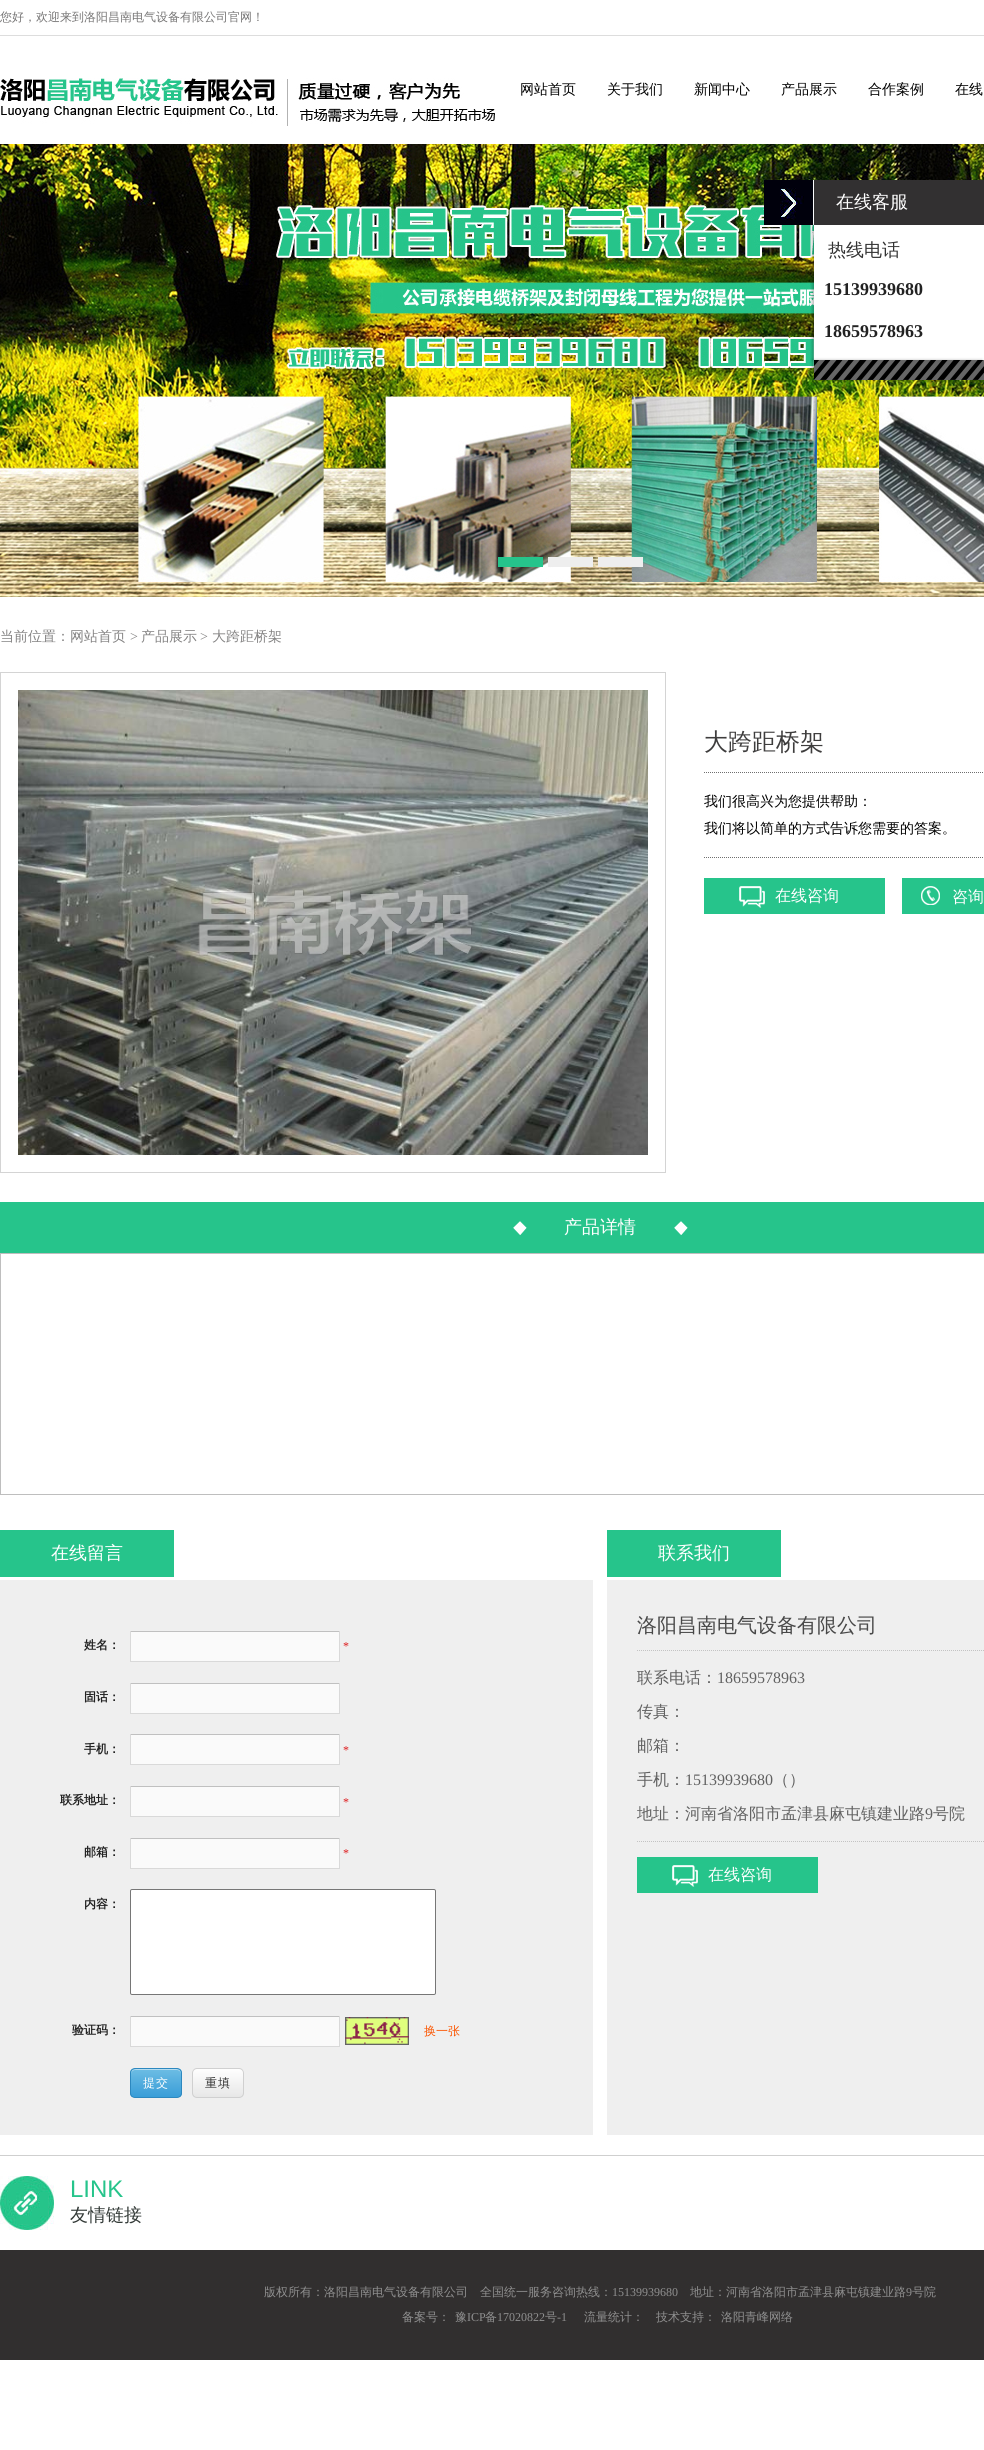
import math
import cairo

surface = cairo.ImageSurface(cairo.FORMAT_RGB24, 984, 2450)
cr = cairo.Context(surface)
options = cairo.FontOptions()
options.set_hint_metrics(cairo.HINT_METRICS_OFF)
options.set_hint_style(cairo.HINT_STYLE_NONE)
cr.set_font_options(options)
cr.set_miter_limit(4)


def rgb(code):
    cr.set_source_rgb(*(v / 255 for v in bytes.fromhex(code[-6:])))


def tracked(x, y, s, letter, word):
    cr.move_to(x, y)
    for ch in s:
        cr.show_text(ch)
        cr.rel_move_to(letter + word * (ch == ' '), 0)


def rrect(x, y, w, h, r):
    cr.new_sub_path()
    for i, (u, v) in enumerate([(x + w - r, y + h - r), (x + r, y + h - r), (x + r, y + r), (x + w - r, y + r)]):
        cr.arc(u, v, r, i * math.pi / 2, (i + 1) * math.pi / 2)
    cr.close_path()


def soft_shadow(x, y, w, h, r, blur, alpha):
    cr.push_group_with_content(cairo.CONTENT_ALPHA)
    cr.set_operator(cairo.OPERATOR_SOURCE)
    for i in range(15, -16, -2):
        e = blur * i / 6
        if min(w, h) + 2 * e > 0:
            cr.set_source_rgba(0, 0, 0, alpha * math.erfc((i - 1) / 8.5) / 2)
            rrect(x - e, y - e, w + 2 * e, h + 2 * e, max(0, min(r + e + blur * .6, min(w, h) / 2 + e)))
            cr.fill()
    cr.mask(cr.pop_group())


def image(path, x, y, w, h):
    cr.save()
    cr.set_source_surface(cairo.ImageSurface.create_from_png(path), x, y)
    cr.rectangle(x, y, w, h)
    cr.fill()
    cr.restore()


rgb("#ffffff")
cr.paint()
rgb("#dddddd")
cr.rectangle(0, 35, 984, 1)
cr.fill()
image("img/1.png", 0, 78, 495, 48)
image("img/2.png", 0, 144, 984, 453)
for x, y, w, h, color in [
    (498, 557, 45, 10, "#26c48b"),
    (548, 557, 45, 10, "#eeeeee"),
    (598, 557, 45, 10, "#eeeeee"),
]:
    rgb(color)
    cr.rectangle(x, y, w, h)
    cr.fill()
image("img/3.png", 764, 180, 50, 45)
rgb("#ffffff")
cr.rectangle(814, 225, 170, 135)
cr.fill()
cr.save()
cr.rectangle(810, 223, 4, 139)
cr.clip()
rgb("#000000")
soft_shadow(812, 225, 170, 135, 0, 1.5, 0.25)
cr.restore()
rgb("#323031")
cr.rectangle(814, 180, 170, 45)
cr.fill()
rgb("#000000")
soft_shadow(812, 360, 170, 20, 0, 1.5, 0.25)
image("img/4.png", 814, 360, 170, 20)
cr.rectangle(0.5, 672.5, 665, 500)
rgb("#d4d4d4")
cr.set_line_width(1)
cr.stroke()
image("img/5.png", 18, 690, 630, 465)
cr.new_path()
cr.move_to(704, 772.5)
cr.line_to(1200, 772.5)
rgb("#6f6f6f")
cr.set_dash([1, 1])
cr.stroke()
cr.new_path()
cr.move_to(704, 857.5)
cr.line_to(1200, 857.5)
cr.stroke()
image("img/6.png", 704, 878, 181, 36)
image("img/7.png", 902, 878, 82, 36)
rgb("#26c48b")
cr.rectangle(0, 1202, 984, 51)
cr.fill()
image("img/8.png", 513, 1221, 175, 14)
cr.rectangle(0.5, 1253.5, 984, 241)
rgb("#bebebe")
cr.set_dash([])
cr.stroke()
for x, y, w, h, color in [
    (0, 1530, 174, 47, "#26c48b"),
    (0, 1580, 593, 555, "#efefef"),
    (131, 1632, 208, 29, "#fafafa"),
    (130, 1631, 210, 1, "#c0c0c0"),
    (339, 1631, 1, 31, "#d9d9d9"),
    (130, 1661, 210, 1, "#d9d9d9"),
    (130, 1631, 1, 31, "#d9d9d9"),
    (131, 1684, 208, 29, "#fafafa"),
    (130, 1683, 210, 1, "#c0c0c0"),
    (339, 1683, 1, 31, "#d9d9d9"),
    (130, 1713, 210, 1, "#d9d9d9"),
    (130, 1683, 1, 31, "#d9d9d9"),
    (131, 1735, 208, 29, "#fafafa"),
    (130, 1734, 210, 1, "#c0c0c0"),
    (339, 1734, 1, 31, "#d9d9d9"),
    (130, 1764, 210, 1, "#d9d9d9"),
    (130, 1734, 1, 31, "#d9d9d9"),
    (131, 1787, 208, 29, "#fafafa"),
    (130, 1786, 210, 1, "#c0c0c0"),
    (339, 1786, 1, 31, "#d9d9d9"),
    (130, 1816, 210, 1, "#d9d9d9"),
    (130, 1786, 1, 31, "#d9d9d9"),
    (131, 1839, 208, 29, "#fafafa"),
    (130, 1838, 210, 1, "#c0c0c0"),
    (339, 1838, 1, 31, "#d9d9d9"),
    (130, 1868, 210, 1, "#d9d9d9"),
    (130, 1838, 1, 31, "#d9d9d9"),
]:
    rgb(color)
    cr.rectangle(x, y, w, h)
    cr.fill()
rgb("#ffffff")
rrect(130.5, 1889.5, 305, 105, 1.5)
cr.fill_preserve()
rgb("#767676")
cr.stroke()
for x, y, w, h, color in [
    (131, 2017, 208, 29, "#fafafa"),
    (130, 2016, 210, 1, "#c0c0c0"),
    (339, 2016, 1, 31, "#d9d9d9"),
    (130, 2046, 210, 1, "#d9d9d9"),
    (130, 2016, 1, 31, "#d9d9d9"),
]:
    rgb(color)
    cr.rectangle(x, y, w, h)
    cr.fill()
image("img/9.png", 345, 2017, 64, 28)
cr.save()
rrect(130, 2068, 52, 30, 5)
cr.clip()
gradient = cairo.LinearGradient(156, 2069, 156, 2097)
gradient.add_color_stop_rgba(0, 0.427, 0.741, 0.894, 1)
gradient.add_color_stop_rgba(1, 0.224, 0.616, 0.847, 1)
cr.set_source(gradient)
cr.rectangle(130, 2069, 52, 28)
cr.fill()
cr.restore()
rgb("#b5ddf1")
cr.new_path()
cr.move_to(135, 2070)
cr.line_to(177, 2070)
cr.curve_to(179, 2070, 181, 2072, 181, 2074)
cr.curve_to(181, 2068, 175, 2069, 170, 2069)
cr.line_to(142, 2069)
cr.curve_to(137, 2069, 131, 2068, 131, 2074)
cr.curve_to(131, 2072, 133, 2070, 135, 2070)
cr.close_path()
cr.fill()
rrect(130.5, 2068.5, 51, 29, 4.5)
rgb("#2d88bf")
cr.stroke()
cr.save()
rrect(192, 2068, 52, 30, 5)
cr.clip()
gradient = cairo.LinearGradient(218, 2069, 218, 2097)
gradient.add_color_stop_rgba(0, 0.996, 0.996, 0.996, 1)
gradient.add_color_stop_rgba(1, 0.906, 0.906, 0.906, 1)
cr.set_source(gradient)
cr.rectangle(192, 2069, 52, 28)
cr.fill()
cr.restore()
rrect(192.5, 2068.5, 51, 29, 4.5)
rgb("#d0d0d0")
cr.stroke()
rgb("#26c48b")
cr.rectangle(607, 1530, 174, 47)
cr.fill()
rgb("#efefef")
cr.rectangle(607, 1580, 377, 555)
cr.fill()
cr.new_path()
cr.move_to(637, 1650.5)
cr.line_to(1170, 1650.5)
rgb("#c3c3c3")
cr.set_dash([1, 1])
cr.stroke()
cr.new_path()
cr.move_to(637, 1841.5)
cr.line_to(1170, 1841.5)
cr.stroke()
image("img/6.png", 637, 1857, 181, 36)
rgb("#cfcfcf")
cr.rectangle(0, 2155, 984, 1)
cr.fill()
image("img/10.png", 0, 2176, 54, 54)
rgb("#312f2f")
cr.rectangle(0, 2250, 984, 110)
cr.fill()
cr.select_font_face("WenQuanYi Zen Hei Medium")
cr.set_font_size(12)
rgb("#777676")
cr.move_to(0, 21)
cr.show_text("您好，欢迎来到洛阳昌南电气设备有限公司官网！")
cr.set_font_size(14)
rgb("#000000")
for x, y, s in [
    (520, 94, "网站首页"),
    (607, 94, "关于我们"),
    (694, 94, "新闻中心"),
    (781, 94, "产品展示"),
    (868, 94, "合作案例"),
    (955, 94, "在线"),
]:
    cr.move_to(x, y)
    cr.show_text(s)
cr.set_font_size(18)
rgb("#ffffff")
cr.move_to(836, 208)
cr.show_text("在线客服")
rgb("#333333")
cr.move_to(828, 256)
cr.show_text("热线电话")
cr.select_font_face("Liberation Serif", cairo.FONT_SLANT_NORMAL, cairo.FONT_WEIGHT_BOLD)
rgb("#222222")
cr.move_to(824, 295)
cr.show_text("15139939680")
cr.move_to(824, 337)
cr.show_text("18659578963")
cr.select_font_face("WenQuanYi Zen Hei Medium")
cr.set_font_size(14)
rgb("#848383")
cr.move_to(0, 641)
cr.show_text("当前位置：网站首页")
cr.select_font_face("Liberation Serif")
cr.move_to(130, 641)
cr.show_text(">")
cr.select_font_face("WenQuanYi Zen Hei Medium")
cr.move_to(141, 641)
cr.show_text("产品展示")
cr.select_font_face("Liberation Serif")
cr.move_to(200, 641)
cr.show_text(">")
cr.select_font_face("WenQuanYi Zen Hei Medium")
cr.move_to(212, 641)
cr.show_text("大跨距桥架")
cr.set_font_size(24)
rgb("#3e3d3d")
cr.move_to(704, 750)
cr.show_text("大跨距桥架")
cr.set_font_size(14)
rgb("#000000")
cr.move_to(704, 806)
cr.show_text("我们很高兴为您提供帮助：")
cr.move_to(704, 833)
cr.show_text("我们将以简单的方式告诉您需要的答案。")
cr.set_font_size(16)
rgb("#ffffff")
cr.move_to(775, 901)
cr.show_text("在线咨询")
cr.move_to(952, 902)
cr.show_text("咨询")
cr.set_font_size(18)
cr.move_to(564, 1233)
cr.show_text("产品详情")
cr.move_to(51, 1559)
cr.show_text("在线留言")
cr.select_font_face("WenQuanYi Zen Hei", cairo.FONT_SLANT_NORMAL, cairo.FONT_WEIGHT_BOLD)
cr.set_font_size(12)
rgb("#222222")
cr.move_to(84, 1649)
cr.show_text("姓名：")
cr.select_font_face("Liberation Serif")
rgb("#dd1517")
cr.move_to(343, 1650)
cr.show_text("*")
cr.select_font_face("WenQuanYi Zen Hei", cairo.FONT_SLANT_NORMAL, cairo.FONT_WEIGHT_BOLD)
rgb("#222222")
cr.move_to(84, 1701)
cr.show_text("固话：")
cr.move_to(84, 1753)
cr.show_text("手机：")
cr.select_font_face("Liberation Serif")
rgb("#dd1517")
cr.move_to(343, 1754)
cr.show_text("*")
cr.select_font_face("WenQuanYi Zen Hei", cairo.FONT_SLANT_NORMAL, cairo.FONT_WEIGHT_BOLD)
rgb("#222222")
cr.move_to(60, 1804)
cr.show_text("联系地址：")
cr.select_font_face("Liberation Serif")
rgb("#dd1517")
cr.move_to(343, 1806)
cr.show_text("*")
cr.select_font_face("WenQuanYi Zen Hei", cairo.FONT_SLANT_NORMAL, cairo.FONT_WEIGHT_BOLD)
rgb("#222222")
cr.move_to(84, 1856)
cr.show_text("邮箱：")
cr.select_font_face("Liberation Serif")
rgb("#dd1517")
cr.move_to(343, 1857)
cr.show_text("*")
cr.select_font_face("WenQuanYi Zen Hei", cairo.FONT_SLANT_NORMAL, cairo.FONT_WEIGHT_BOLD)
rgb("#222222")
cr.move_to(84, 1908)
cr.show_text("内容：")
cr.move_to(72, 2034)
cr.show_text("验证码：")
cr.select_font_face("WenQuanYi Zen Hei Medium")
rgb("#fb5500")
cr.move_to(424, 2035)
cr.show_text("换一张")
rgb("#ffffff")
tracked(143, 2087, "提交", 1, 0)
rgb("#333333")
tracked(205, 2087, "重填", 1, 0)
cr.set_font_size(18)
rgb("#ffffff")
cr.move_to(658, 1559)
cr.show_text("联系我们")
cr.set_font_size(20)
rgb("#484848")
cr.move_to(637, 1632)
cr.show_text("洛阳昌南电气设备有限公司")
cr.set_font_size(16)
rgb("#616161")
cr.move_to(637, 1683)
cr.show_text("联系电话：")
cr.select_font_face("Liberation Serif")
cr.move_to(717, 1683)
cr.show_text("18659578963")
cr.select_font_face("WenQuanYi Zen Hei Medium")
for x, y, s in [
    (637, 1717, "传真："),
    (637, 1751, "邮箱："),
    (637, 1785, "手机："),
]:
    cr.move_to(x, y)
    cr.show_text(s)
cr.select_font_face("Liberation Serif")
cr.move_to(685, 1785)
cr.show_text("15139939680")
cr.select_font_face("WenQuanYi Zen Hei Medium")
cr.move_to(773, 1785)
cr.show_text("（）")
cr.move_to(637, 1819)
cr.show_text("地址：河南省洛阳市孟津县麻屯镇建业路")
cr.select_font_face("Liberation Serif")
cr.move_to(925, 1819)
cr.show_text("9")
cr.select_font_face("WenQuanYi Zen Hei Medium")
cr.move_to(933, 1819)
cr.show_text("号院")
rgb("#ffffff")
cr.move_to(708, 1880)
cr.show_text("在线咨询")
cr.select_font_face("Liberation Sans")
cr.set_font_size(24)
rgb("#26c48b")
cr.move_to(70, 2197)
cr.show_text("LINK")
cr.select_font_face("WenQuanYi Zen Hei Medium")
cr.set_font_size(18)
rgb("#323936")
cr.move_to(70, 2221)
cr.show_text("友情链接")
cr.set_font_size(12)
rgb("#8f8f8f")
cr.move_to(264, 2296)
cr.show_text("版权所有：洛阳昌南电气设备有限公司　全国统一服务咨询热线：")
cr.select_font_face("Liberation Serif")
cr.move_to(612, 2296)
cr.show_text("15139939680")
cr.select_font_face("WenQuanYi Zen Hei Medium")
cr.move_to(690, 2296)
cr.show_text("地址：河南省洛阳市孟津县麻屯镇建业路")
cr.select_font_face("Liberation Serif")
cr.move_to(906, 2296)
cr.show_text("9")
cr.select_font_face("WenQuanYi Zen Hei Medium")
for x, y, s in [
    (912, 2296, "号院"),
    (402, 2321, "备案号："),
    (455, 2321, "豫"),
]:
    cr.move_to(x, y)
    cr.show_text(s)
cr.select_font_face("Liberation Serif")
cr.move_to(467, 2321)
cr.show_text("ICP")
cr.select_font_face("WenQuanYi Zen Hei Medium")
cr.move_to(485, 2321)
cr.show_text("备")
cr.select_font_face("Liberation Serif")
cr.move_to(497, 2321)
cr.show_text("17020822")
cr.select_font_face("WenQuanYi Zen Hei Medium")
cr.move_to(545, 2321)
cr.show_text("号")
cr.select_font_face("Liberation Serif")
cr.move_to(557, 2321)
cr.show_text("-1")
cr.select_font_face("WenQuanYi Zen Hei Medium")
for x, y, s in [
    (584, 2321, "流量统计："),
    (656, 2321, "技术支持："),
    (721, 2321, "洛阳青峰网络"),
]:
    cr.move_to(x, y)
    cr.show_text(s)
surface.write_to_png("page.png")
